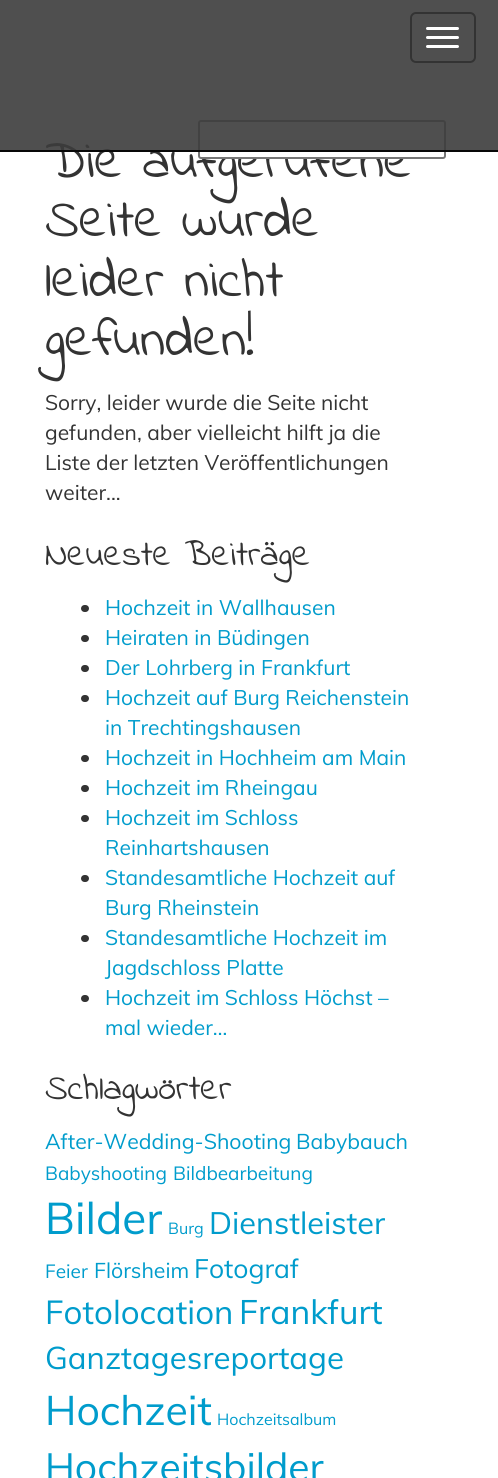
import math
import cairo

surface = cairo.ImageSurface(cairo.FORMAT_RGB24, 498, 1478)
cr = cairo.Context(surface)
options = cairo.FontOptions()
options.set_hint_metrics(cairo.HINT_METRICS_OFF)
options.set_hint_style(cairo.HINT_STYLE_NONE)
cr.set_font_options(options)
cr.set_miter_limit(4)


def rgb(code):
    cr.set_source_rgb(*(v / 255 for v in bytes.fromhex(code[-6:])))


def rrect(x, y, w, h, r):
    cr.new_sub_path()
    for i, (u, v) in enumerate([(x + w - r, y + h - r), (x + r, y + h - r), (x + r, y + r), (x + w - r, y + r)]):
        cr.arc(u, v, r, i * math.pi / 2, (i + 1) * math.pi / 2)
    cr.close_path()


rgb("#ffffff")
cr.paint()
rgb("#333333")
rrect(81, 605, 8, 7, 3.5)
cr.fill()
rrect(81, 635, 8, 7, 3.5)
cr.fill()
rrect(81, 665, 8, 7, 3.5)
cr.fill()
rrect(81, 695, 8, 7, 3.5)
cr.fill()
rrect(81, 755, 8, 7, 3.5)
cr.fill()
rrect(81, 785, 8, 7, 3.5)
cr.fill()
rrect(81, 815, 8, 7, 3.5)
cr.fill()
rrect(81, 875, 8, 7, 3.5)
cr.fill()
rrect(81, 935, 8, 7, 3.5)
cr.fill()
rrect(81, 995, 8, 7, 3.5)
cr.fill()
cr.select_font_face("Indie Flower")
cr.set_font_size(54)
cr.move_to(45, 177)
cr.show_text("Die aufgerufene")
rgb("#ffffff")
rrect(199, 121, 246, 37, 2)
cr.fill_preserve()
rgb("#767676")
cr.stroke()
cr.set_source_rgba(0.235, 0.235, 0.235, 0.9)
cr.rectangle(0, 0, 498, 150)
cr.fill()
rrect(411, 13, 64, 49, 5)
rgb("#333333")
cr.stroke()
rgb("#ffffff")
rrect(426, 45, 33, 3, 1.5)
cr.fill()
rrect(426, 36, 33, 3, 1.5)
cr.fill()
rrect(426, 27, 33, 3, 1.5)
cr.fill()
rgb("#080808")
cr.rectangle(0, 150, 498, 2)
cr.fill()
rgb("#333333")
for x, y, s in [
    (45, 236, "Seite wurde"),
    (45, 296, "leider nicht"),
    (45, 355, "gefunden!"),
]:
    cr.move_to(x, y)
    cr.show_text(s)
cr.select_font_face("Muli")
cr.set_font_size(21)
for x, y, s in [
    (45, 410, "Sorry, leider wurde die Seite nicht"),
    (45, 440, "gefunden, aber vielleicht hilft ja die"),
    (45, 470, "Liste der letzten Veröffentlichungen"),
    (45, 500, "weiter..."),
]:
    cr.move_to(x, y)
    cr.show_text(s)
cr.select_font_face("Indie Flower")
cr.set_font_size(36)
cr.move_to(45, 565)
cr.show_text("Neueste Beiträge")
cr.select_font_face("Muli")
cr.set_font_size(21)
rgb("#009ccc")
for x, y, s in [
    (105, 615, "Hochzeit in Wallhausen"),
    (105, 645, "Heiraten in Büdingen"),
    (105, 675, "Der Lohrberg in Frankfurt"),
    (105, 705, "Hochzeit auf Burg Reichenstein"),
    (105, 735, "in Trechtingshausen"),
    (105, 765, "Hochzeit in Hochheim am Main"),
    (105, 795, "Hochzeit im Rheingau"),
    (105, 825, "Hochzeit im Schloss"),
    (105, 855, "Reinhartshausen"),
    (105, 885, "Standesamtliche Hochzeit auf"),
    (105, 915, "Burg Rheinstein"),
    (105, 945, "Standesamtliche Hochzeit im"),
    (105, 975, "Jagdschloss Platte"),
    (105, 1005, "Hochzeit im Schloss Höchst –"),
    (105, 1035, "mal wieder…"),
]:
    cr.move_to(x, y)
    cr.show_text(s)
cr.select_font_face("Indie Flower")
cr.set_font_size(36)
rgb("#333333")
cr.move_to(45, 1099)
cr.show_text("Schlagwörter")
cr.select_font_face("Muli")
cr.set_font_size(21.25)
rgb("#009ccc")
cr.move_to(45, 1149)
cr.show_text("After-Wedding-Shooting")
cr.move_to(296, 1149)
cr.show_text("Babybauch")
cr.set_font_size(19)
cr.move_to(45, 1180)
cr.show_text("Babyshooting")
cr.move_to(173, 1180)
cr.show_text("Bildbearbeitung")
cr.set_font_size(44)
cr.move_to(45, 1234)
cr.show_text("Bilder")
cr.set_font_size(16)
cr.move_to(168, 1234)
cr.show_text("Burg")
cr.set_font_size(30.75)
cr.move_to(209, 1234)
cr.show_text("Dienstleister")
cr.set_font_size(19)
cr.move_to(45, 1278)
cr.show_text("Feier")
cr.set_font_size(21.25)
cr.move_to(94, 1278)
cr.show_text("Flörsheim")
cr.set_font_size(26.5)
cr.move_to(194, 1278)
cr.show_text("Fotograf")
cr.set_font_size(33)
cr.move_to(45, 1324)
cr.show_text("Fotolocation")
cr.set_font_size(33.75)
cr.move_to(239, 1324)
cr.show_text("Frankfurt")
cr.set_font_size(31.25)
cr.move_to(45, 1369)
cr.show_text("Ganztagesreportage")
cr.set_font_size(41)
cr.move_to(45, 1425)
cr.show_text("Hochzeit")
cr.set_font_size(16)
cr.move_to(217, 1425)
cr.show_text("Hochzeitsalbum")
cr.set_font_size(39)
cr.move_to(45, 1481)
cr.show_text("Hochzeitsbilder")
surface.write_to_png("page.png")
